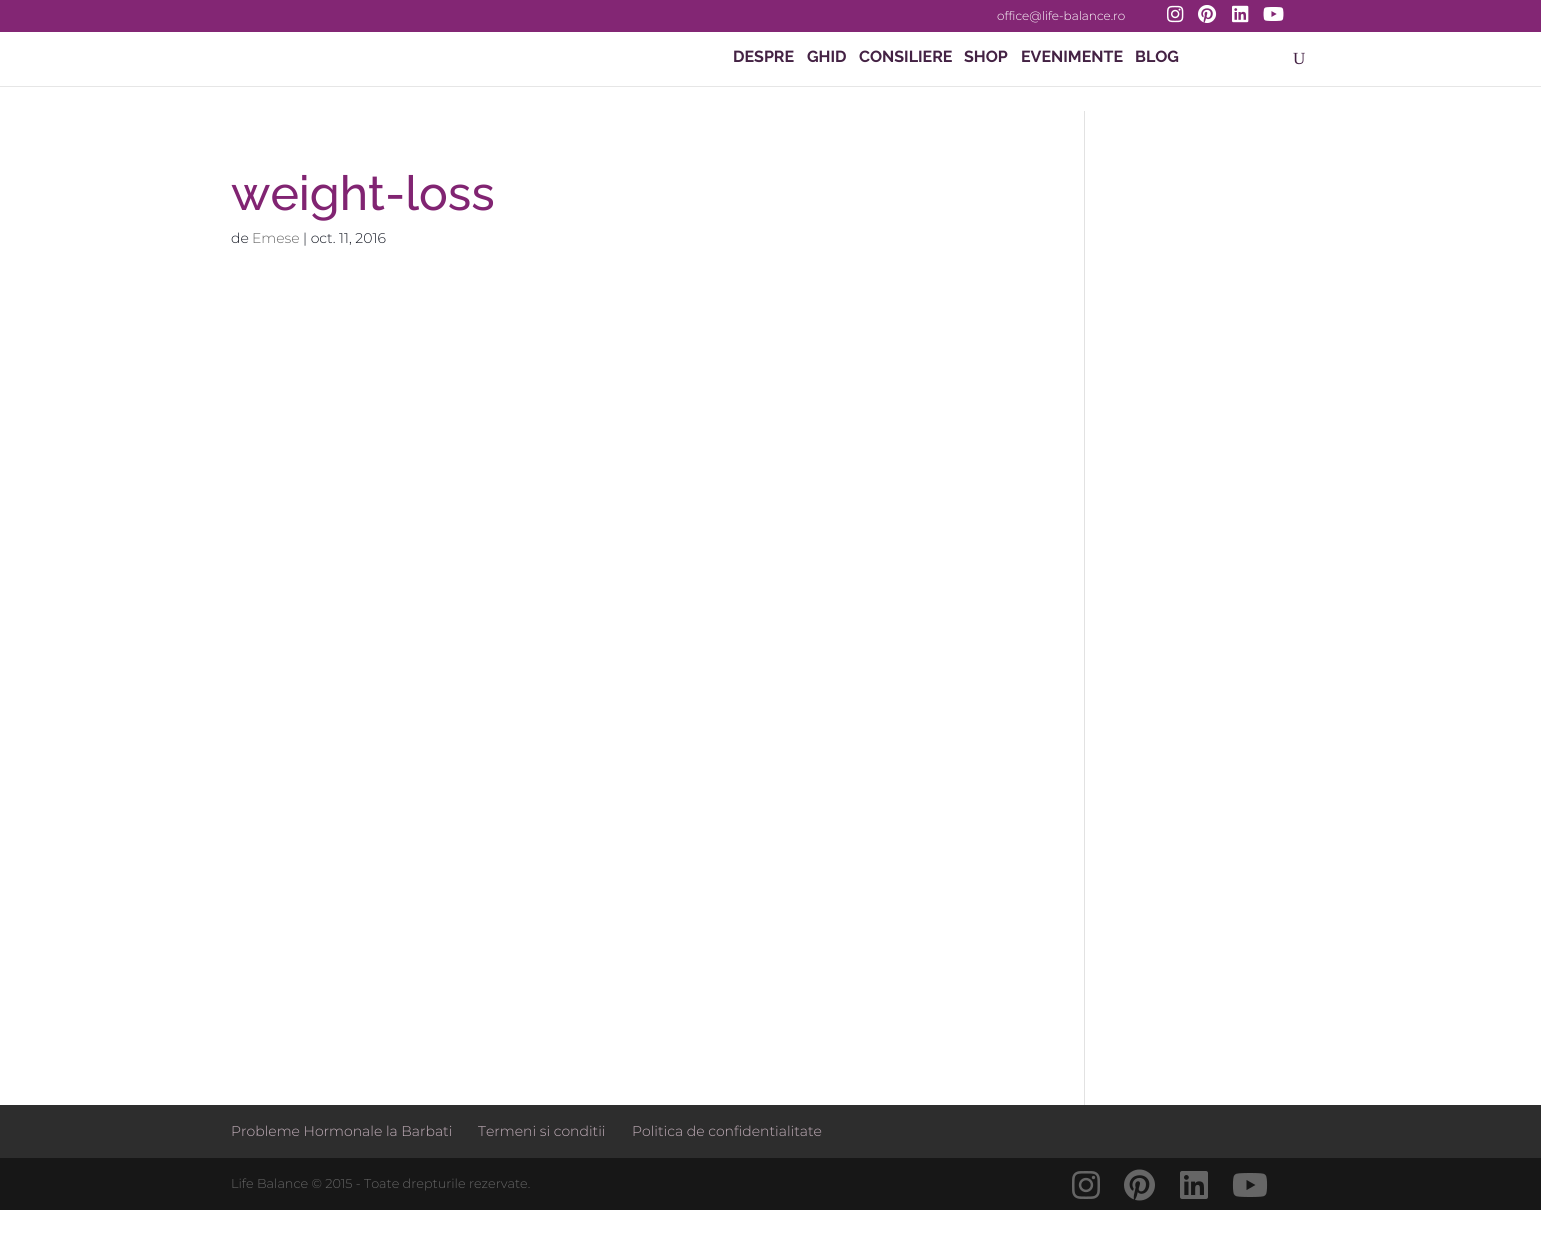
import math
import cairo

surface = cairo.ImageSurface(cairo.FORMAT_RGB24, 1541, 1234)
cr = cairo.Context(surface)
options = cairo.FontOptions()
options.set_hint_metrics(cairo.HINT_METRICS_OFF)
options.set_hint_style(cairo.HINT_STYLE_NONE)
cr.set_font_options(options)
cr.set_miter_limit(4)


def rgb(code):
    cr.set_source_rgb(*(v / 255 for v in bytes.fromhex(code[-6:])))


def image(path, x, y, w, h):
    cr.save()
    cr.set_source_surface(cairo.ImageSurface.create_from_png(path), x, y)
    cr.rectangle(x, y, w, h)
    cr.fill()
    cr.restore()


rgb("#ffffff")
cr.paint()
rgb("#832674")
cr.rectangle(0, 0, 1541, 32)
cr.fill()
image("img/1.png", 1167, 5, 17, 18)
image("img/2.png", 1198, 5, 19, 18)
image("img/3.png", 1232, 5, 17, 18)
image("img/4.png", 1263, 7, 21, 14)
for x, y, w, h, color in [
    (0, 86, 1541, 1, "#e6e6e6"),
    (1084, 111, 1, 994, "#e2e2e2"),
    (0, 1105, 1541, 53, "#2d2d2d"),
    (0, 1158, 1541, 52, "#171717"),
]:
    rgb(color)
    cr.rectangle(x, y, w, h)
    cr.fill()
image("img/5.png", 1072, 1171, 28, 28)
image("img/6.png", 1124, 1169, 31, 32)
image("img/7.png", 1180, 1171, 28, 28)
image("img/8.png", 1232, 1173, 36, 24)
cr.select_font_face("Montserrat Light")
cr.set_font_size(12)
rgb("#ffffff")
cr.move_to(997, 20)
cr.show_text("office@life-balance.ro")
cr.select_font_face("Raleway", cairo.FONT_SLANT_NORMAL, cairo.FONT_WEIGHT_BOLD)
cr.set_font_size(16)
rgb("#442244")
for x, y, s in [
    (733, 62, "DESPRE"),
    (807, 62, "GHID"),
    (859, 62, "CONSILIERE"),
    (964, 62, "SHOP"),
    (1021, 62, "EVENIMENTE"),
    (1135, 62, "BLOG"),
]:
    cr.move_to(x, y)
    cr.show_text(s)
cr.select_font_face("Liberation Serif")
cr.set_font_size(17)
cr.move_to(1293, 64)
cr.show_text("U")
cr.select_font_face("Raleway Medium")
cr.set_font_size(48)
rgb("#812472")
cr.move_to(231, 210)
cr.show_text("weight-loss")
cr.select_font_face("Montserrat Light")
cr.set_font_size(14)
rgb("#141823")
cr.move_to(231, 243)
cr.show_text("de")
rgb("#666666")
cr.move_to(252, 243)
cr.show_text("Emese")
rgb("#141823")
cr.move_to(303, 243)
cr.show_text("| oct. 11, 2016")
rgb("#c4b0bb")
for x, y, s in [
    (231, 1136, "Probleme Hormonale la Barbati"),
    (478, 1136, "Termeni si conditii"),
    (632, 1136, "Politica de confidentialitate"),
]:
    cr.move_to(x, y)
    cr.show_text(s)
cr.set_font_size(12.8)
rgb("#666666")
cr.move_to(231, 1188)
cr.show_text("Life Balance © 2015 - Toate drepturile rezervate.")
surface.write_to_png("page.png")
